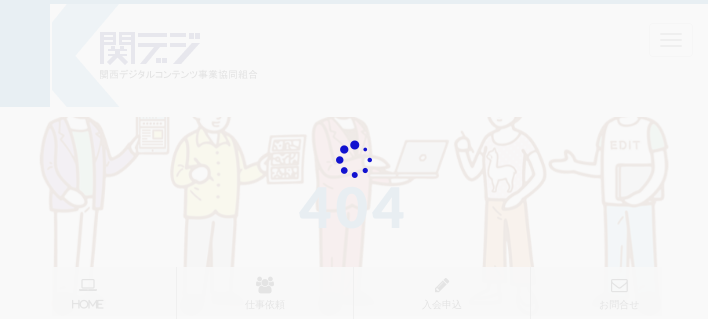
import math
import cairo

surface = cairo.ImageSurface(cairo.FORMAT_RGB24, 708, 319)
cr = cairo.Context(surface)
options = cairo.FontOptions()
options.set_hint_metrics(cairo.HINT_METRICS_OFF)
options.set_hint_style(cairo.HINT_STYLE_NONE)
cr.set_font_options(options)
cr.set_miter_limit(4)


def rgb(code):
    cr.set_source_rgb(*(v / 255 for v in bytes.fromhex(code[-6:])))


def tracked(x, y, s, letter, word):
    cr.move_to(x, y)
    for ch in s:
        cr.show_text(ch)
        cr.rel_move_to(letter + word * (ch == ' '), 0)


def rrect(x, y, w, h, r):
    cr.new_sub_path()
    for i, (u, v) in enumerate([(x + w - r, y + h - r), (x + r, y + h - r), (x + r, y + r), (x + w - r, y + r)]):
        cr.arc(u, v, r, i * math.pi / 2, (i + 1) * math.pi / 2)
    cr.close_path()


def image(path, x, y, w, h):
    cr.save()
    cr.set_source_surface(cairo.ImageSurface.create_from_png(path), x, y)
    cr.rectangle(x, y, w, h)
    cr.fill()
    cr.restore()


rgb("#f9f9f9")
cr.paint()
image("img/4.png", 39, 117, 630, 199)
image("img/1.png", 336, 140, 36, 38)
rgb("#e8eff3")
cr.rectangle(0, 0, 708, 4)
cr.fill()
image("img/2.png", 0, 4, 120, 103)
image("img/3.png", 100, 32, 158, 47)
rrect(649.5, 23.5, 43, 33, 3.5)
rgb("#f6f6f6")
cr.set_line_width(1)
cr.stroke()
rgb("#efefef")
rrect(660, 33, 22, 2, 1)
cr.fill()
rrect(660, 39, 22, 2, 1)
cr.fill()
rrect(660, 45, 22, 2, 1)
cr.fill()
cr.set_source_rgba(0.973, 0.973, 0.973, 0.95)
cr.rectangle(52, 267, 610, 49)
cr.fill()
rgb("#f0f0f0")
cr.rectangle(176, 267, 1, 52)
cr.fill()
image("img/5.png", 79, 279, 18, 12)
image("img/6.png", 72, 299, 32, 10)
cr.rectangle(353, 267, 1, 52)
cr.fill()
image("img/7.png", 256, 276, 18, 18)
cr.rectangle(530, 267, 1, 52)
cr.fill()
image("img/8.png", 435, 278, 15, 15)
image("img/9.png", 611, 279, 17, 14)
cr.select_font_face("Lato Black")
cr.set_font_size(56)
rgb("#e8eef2")
tracked(299, 228, "404", 4, 0)
cr.select_font_face("WenQuanYi Zen Hei Medium")
cr.set_font_size(10)
rgb("#e4e4e4")
for x, y, s in [
    (245, 308, "仕事依頼"),
    (422, 308, "入会申込"),
    (599, 308, "お問合せ"),
]:
    cr.move_to(x, y)
    cr.show_text(s)
surface.write_to_png("page.png")
